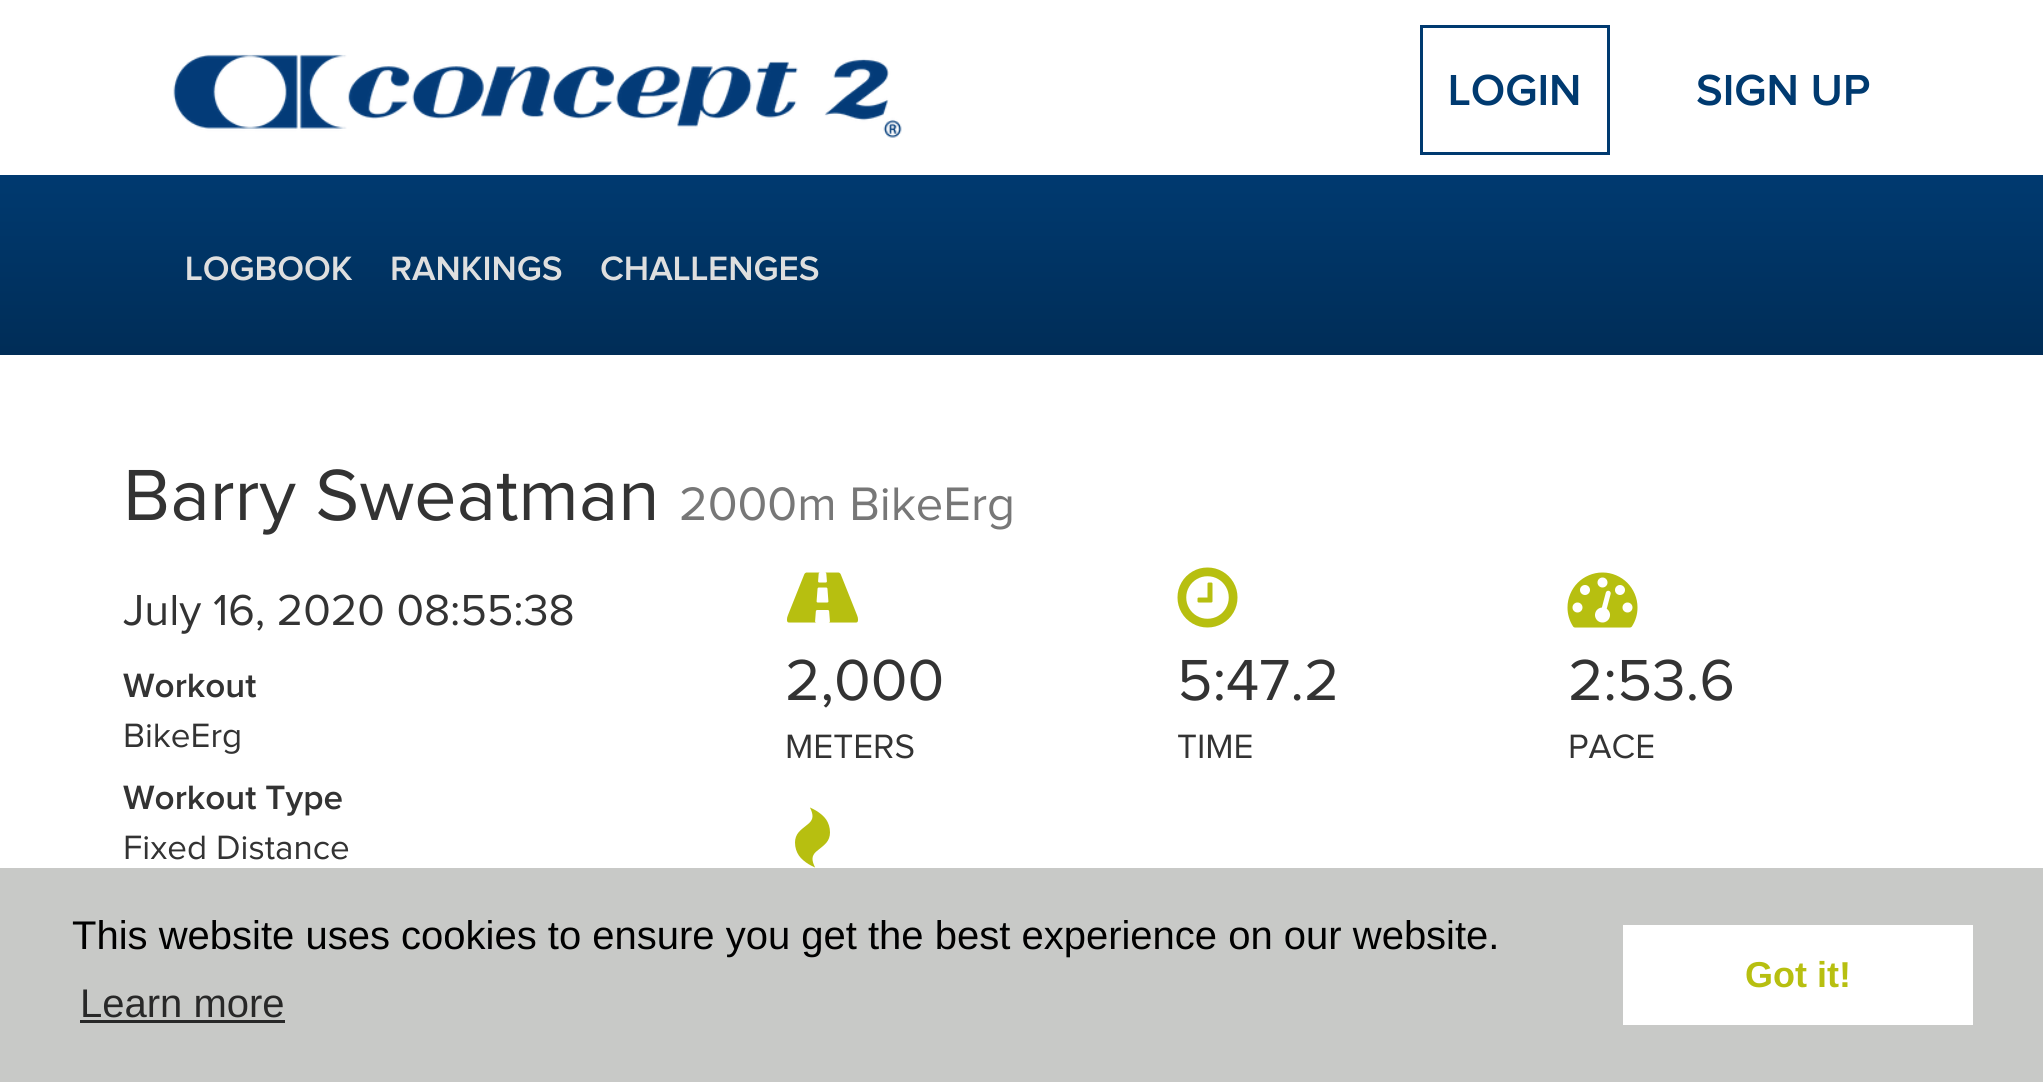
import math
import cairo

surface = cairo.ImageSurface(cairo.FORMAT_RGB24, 2043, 1082)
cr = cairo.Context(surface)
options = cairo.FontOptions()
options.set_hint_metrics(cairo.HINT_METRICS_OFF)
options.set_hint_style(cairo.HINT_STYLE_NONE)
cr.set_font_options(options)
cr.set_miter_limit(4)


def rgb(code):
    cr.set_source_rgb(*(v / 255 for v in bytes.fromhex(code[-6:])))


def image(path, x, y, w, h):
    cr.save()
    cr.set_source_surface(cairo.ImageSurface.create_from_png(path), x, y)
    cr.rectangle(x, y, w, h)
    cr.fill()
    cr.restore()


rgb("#ffffff")
cr.paint()
image("img/1.png", 173, 54, 729, 84)
cr.rectangle(1421.5, 26.5, 187, 127)
rgb("#003a70")
cr.set_line_width(3)
cr.stroke()
gradient = cairo.LinearGradient(1023, 175, 1023, 355)
gradient.add_color_stop_rgba(0, 0, 0.227, 0.439, 1)
gradient.add_color_stop_rgba(1, 0, 0.176, 0.341, 1)
cr.set_source(gradient)
cr.rectangle(0, 175, 2043, 180)
cr.fill()
image("img/2.png", 787, 572, 71, 51)
image("img/3.png", 1177, 567, 61, 61)
image("img/4.png", 1567, 572, 71, 56)
image("img/5.png", 795, 807, 35, 61)
for x, y, w, h, color in [
    (0, 868, 2043, 214, "#c8c9c7"),
    (80, 1020, 205, 3, "#282828"),
    (1623, 925, 350, 100, "#ffffff"),
]:
    rgb(color)
    cr.rectangle(x, y, w, h)
    cr.fill()
cr.select_font_face("Proxima Nova SemiBold")
cr.set_font_size(45)
rgb("#003a70")
cr.move_to(1448, 105)
cr.show_text("LOGIN")
cr.move_to(1696, 105)
cr.show_text("SIGN UP")
cr.set_font_size(35)
rgb("#dfdfdf")
for x, y, s in [
    (185, 280, "LOGBOOK"),
    (390, 280, "RANKINGS"),
    (600, 280, "CHALLENGES"),
]:
    cr.move_to(x, y)
    cr.show_text(s)
cr.select_font_face("Proxima Nova")
cr.set_font_size(75)
rgb("#333333")
cr.move_to(123, 520)
cr.show_text("Barry Sweatman")
cr.set_font_size(48.75)
rgb("#777777")
cr.move_to(679, 520)
cr.show_text("2000m BikeErg")
cr.set_font_size(45)
rgb("#333333")
cr.move_to(123, 625)
cr.show_text("July 16, 2020 08:55:38")
cr.select_font_face("Proxima Nova SemiBold")
cr.set_font_size(35)
cr.move_to(123, 697)
cr.show_text("Workout")
cr.select_font_face("Proxima Nova")
cr.move_to(123, 747)
cr.show_text("BikeErg")
cr.select_font_face("Proxima Nova SemiBold")
cr.move_to(123, 809)
cr.show_text("Workout Type")
cr.select_font_face("Proxima Nova")
cr.move_to(123, 859)
cr.show_text("Fixed Distance")
cr.set_font_size(60)
cr.move_to(785, 700)
cr.show_text("2,000")
cr.set_font_size(35)
cr.move_to(785, 758)
cr.show_text("METERS")
cr.set_font_size(60)
cr.move_to(1177, 700)
cr.show_text("5:47.2")
cr.set_font_size(35)
cr.move_to(1177, 758)
cr.show_text("TIME")
cr.set_font_size(60)
cr.move_to(1568, 700)
cr.show_text("2:53.6")
cr.set_font_size(35)
cr.move_to(1568, 758)
cr.show_text("PACE")
cr.select_font_face("Liberation Sans")
cr.set_font_size(40)
rgb("#000000")
cr.move_to(72, 949)
cr.show_text("This website uses cookies to ensure you get the best experience on our website.")
rgb("#282828")
cr.move_to(80, 1017)
cr.show_text("Learn more")
cr.select_font_face("Liberation Sans", cairo.FONT_SLANT_NORMAL, cairo.FONT_WEIGHT_BOLD)
cr.set_font_size(36)
rgb("#b7bf10")
cr.move_to(1745, 987)
cr.show_text("Got it!")
surface.write_to_png("page.png")
